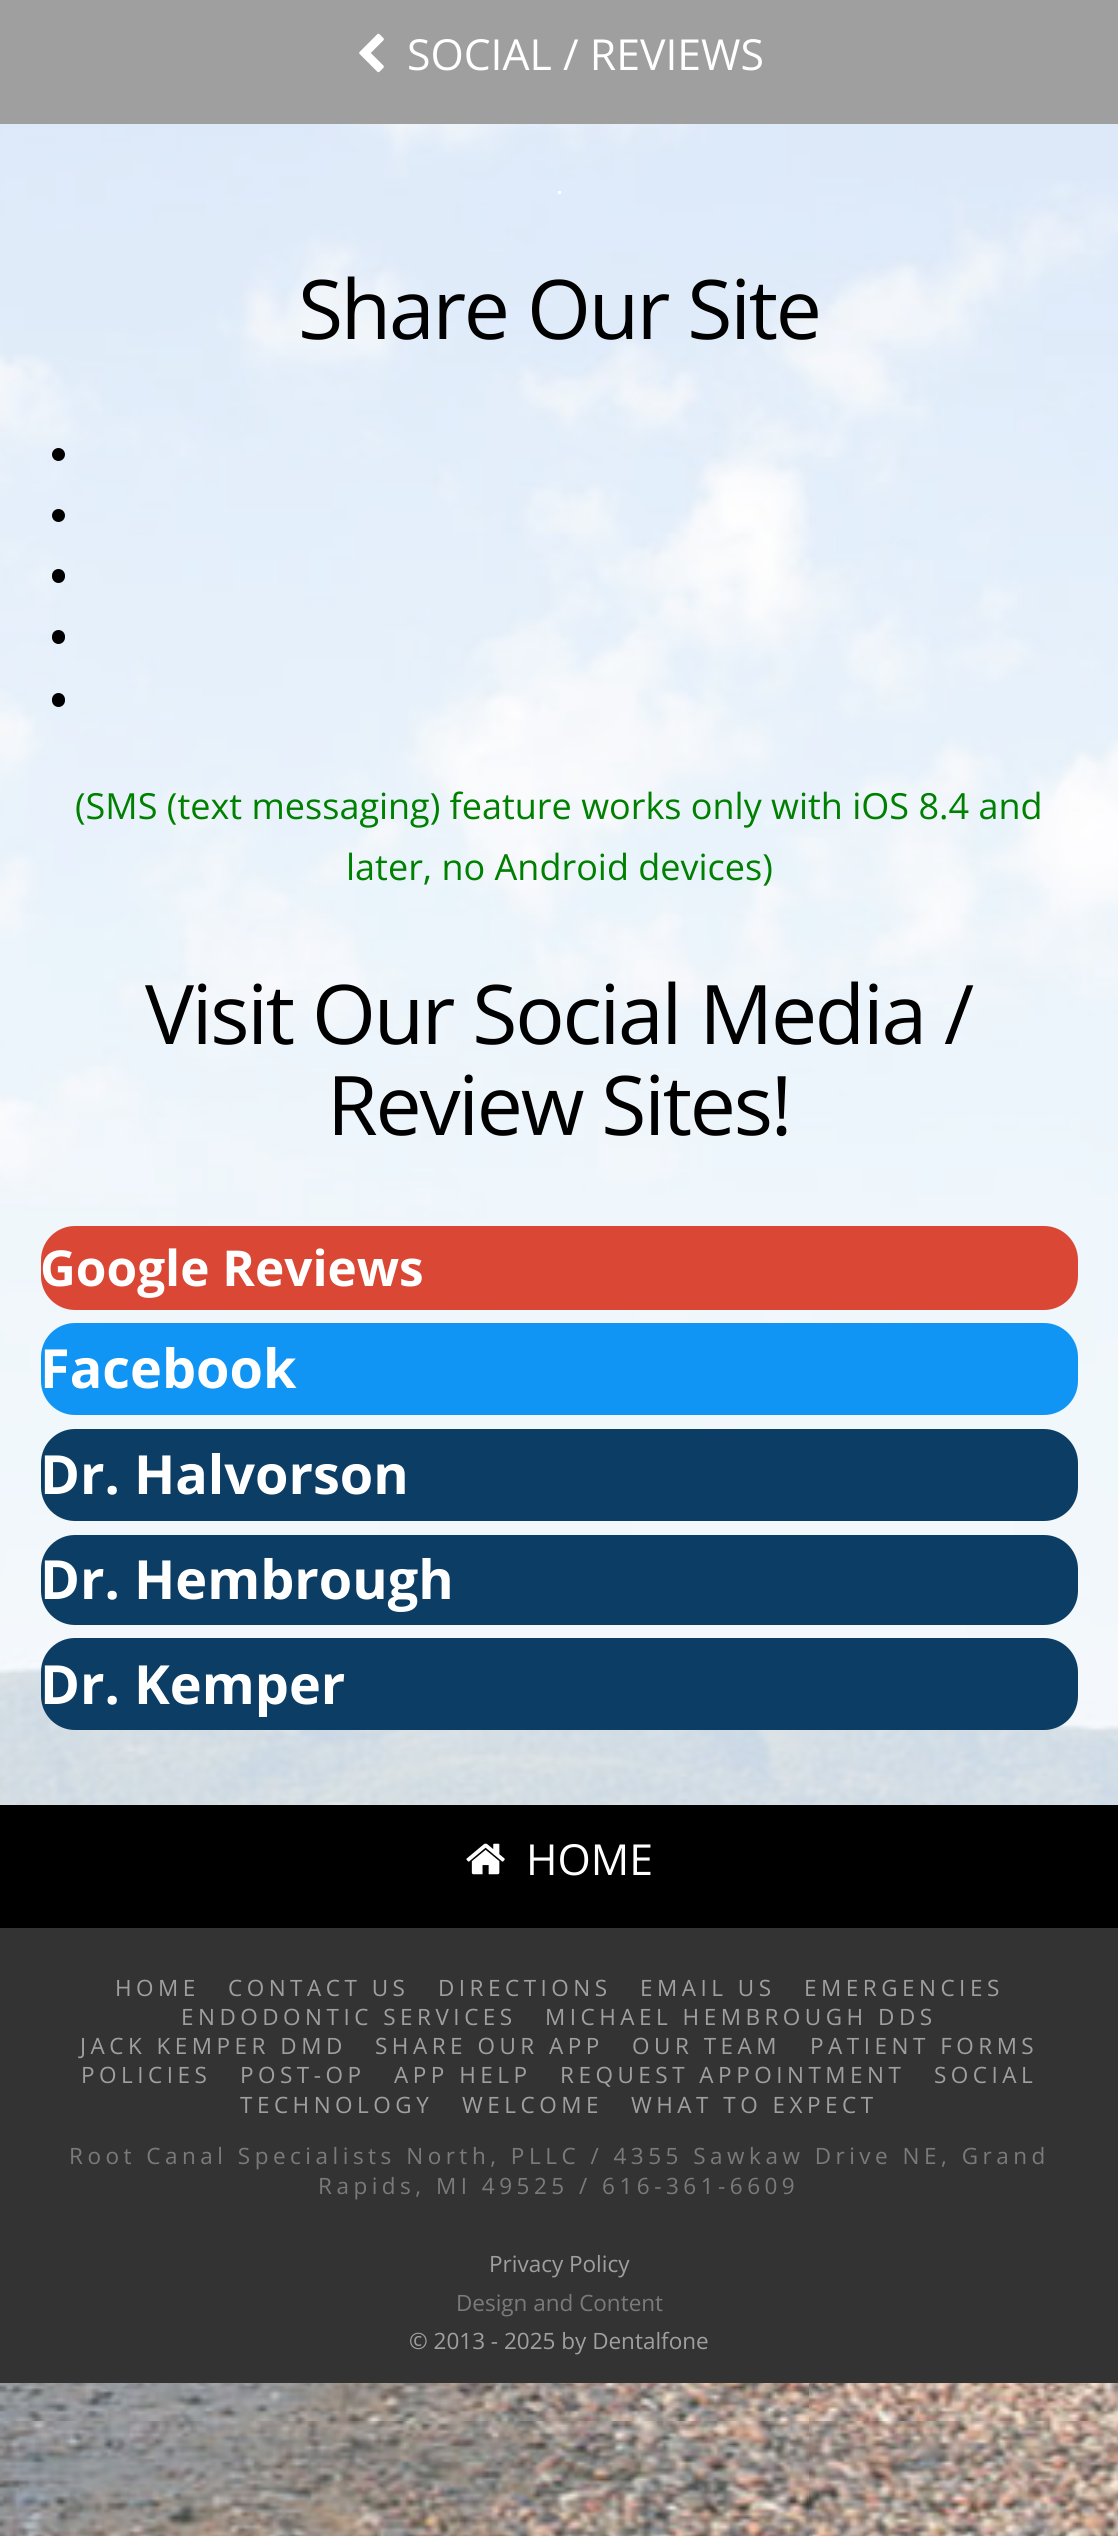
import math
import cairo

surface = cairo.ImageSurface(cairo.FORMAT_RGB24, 1118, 2536)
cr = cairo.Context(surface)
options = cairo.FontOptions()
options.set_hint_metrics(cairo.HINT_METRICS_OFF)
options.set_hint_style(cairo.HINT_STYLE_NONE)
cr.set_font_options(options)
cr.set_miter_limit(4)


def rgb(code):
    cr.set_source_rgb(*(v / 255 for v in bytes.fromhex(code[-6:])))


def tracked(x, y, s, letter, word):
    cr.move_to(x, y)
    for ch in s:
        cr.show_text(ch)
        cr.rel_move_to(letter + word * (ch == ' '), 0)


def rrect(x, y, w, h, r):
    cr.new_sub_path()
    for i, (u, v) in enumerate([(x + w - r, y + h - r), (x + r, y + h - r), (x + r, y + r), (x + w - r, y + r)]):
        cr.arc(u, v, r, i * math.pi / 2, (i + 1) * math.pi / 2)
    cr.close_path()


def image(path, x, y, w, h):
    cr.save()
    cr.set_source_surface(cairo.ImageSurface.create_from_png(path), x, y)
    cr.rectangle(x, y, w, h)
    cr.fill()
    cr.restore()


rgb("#ffffff")
cr.paint()
rgb("#9f9f9f")
cr.rectangle(0, 0, 1118, 124)
cr.fill()
image("img/1.png", 359, 33, 25, 40)
image("img/3.png", 0, 124, 1118, 2412)
cr.set_source_rgba(1, 1, 1, 0.6)
cr.rectangle(0, 124, 1118, 1096)
cr.fill()
rgb("#ffffff")
cr.rectangle(558, 191, 3, 3)
cr.fill()
rgb("#000000")
cr.arc(58.5, 454.5, 6.5, 0, 2 * math.pi)
cr.fill()
cr.arc(58.5, 515.5, 6.5, 0, 2 * math.pi)
cr.fill()
rrect(52, 569, 13, 14, 6.5)
cr.fill()
rrect(52, 630, 13, 14, 6.5)
cr.fill()
rrect(52, 693, 13, 14, 6.5)
cr.fill()
cr.set_source_rgba(1, 1, 1, 0.6)
cr.rectangle(0, 1220, 1118, 585)
cr.fill()
rgb("#da4735")
rrect(41, 1226, 1037, 84, 34)
cr.fill()
rgb("#1195f5")
rrect(41, 1323, 1037, 92, 34)
cr.fill()
rgb("#0c3d64")
rrect(41, 1429, 1037, 92, 34)
cr.fill()
rrect(41, 1535, 1037, 90, 34)
cr.fill()
rrect(41, 1638, 1037, 92, 34)
cr.fill()
rgb("#000000")
cr.rectangle(0, 1805, 1118, 123)
cr.fill()
image("img/2.png", 466, 1843, 39, 32)
rgb("#333333")
cr.rectangle(0, 1928, 1118, 455)
cr.fill()
cr.select_font_face("Open Sans")
cr.set_font_size(42.75)
rgb("#ffffff")
cr.move_to(407, 70)
cr.show_text("SOCIAL / REVIEWS")
cr.set_font_size(82.25)
rgb("#000000")
tracked(298, 339, "Share Our Site", -2.25, 0)
cr.set_font_size(36)
rgb("#008000")
cr.move_to(75, 819)
cr.show_text("(SMS (text messaging) feature works only with iOS 8.4 and")
cr.move_to(346, 880)
cr.show_text("later, no Android devices)")
cr.set_font_size(82.25)
rgb("#000000")
tracked(145, 1044, "Visit Our Social Media /", -2.25, 0)
tracked(327, 1135, "Review Sites!", -2.25, 0)
cr.select_font_face("Open Sans", cairo.FONT_SLANT_NORMAL, cairo.FONT_WEIGHT_BOLD)
cr.set_font_size(49.5)
rgb("#ffffff")
cr.move_to(40, 1286)
cr.show_text("Google Reviews")
cr.set_font_size(54)
for x, y, s in [
    (40, 1388, "Facebook"),
    (40, 1494, "Dr. Halvorson"),
    (40, 1599, "Dr. Hembrough"),
    (40, 1704, "Dr. Kemper"),
]:
    cr.move_to(x, y)
    cr.show_text(s)
cr.select_font_face("Open Sans")
cr.set_font_size(42.75)
cr.move_to(526, 1875)
cr.show_text("HOME")
cr.set_font_size(22.5)
rgb("#9f9f9f")
for x, y, s in [
    (115, 1996, "HOME"),
    (228, 1996, "CONTACT US"),
    (438, 1996, "DIRECTIONS"),
    (640, 1996, "EMAIL US"),
    (804, 1996, "EMERGENCIES"),
    (181, 2025, "ENDODONTIC SERVICES"),
    (545, 2025, "MICHAEL HEMBROUGH DDS"),
    (80, 2054, "JACK KEMPER DMD"),
    (375, 2054, "SHARE OUR APP"),
    (632, 2054, "OUR TEAM"),
    (810, 2054, "PATIENT FORMS"),
    (81, 2083, "POLICIES"),
    (240, 2083, "POST-OP"),
    (394, 2083, "APP HELP"),
    (560, 2083, "REQUEST APPOINTMENT"),
    (934, 2083, "SOCIAL"),
    (240, 2113, "TECHNOLOGY"),
    (462, 2113, "WELCOME"),
    (631, 2113, "WHAT TO EXPECT"),
]:
    tracked(x, y, s, 4.5, 0)
rgb("#7a7a7a")
tracked(69, 2164, "Root Canal Specialists North, PLLC / 4355 Sawkaw Drive NE, Grand", 4.5, 0)
tracked(318, 2194, "Rapids, MI 49525 / 616-361-6609", 4.5, 0)
rgb("#9f9f9f")
cr.move_to(489, 2272)
cr.show_text("Privacy Policy")
rgb("#7a7a7a")
cr.move_to(456, 2311)
cr.show_text("Design and Content")
rgb("#9f9f9f")
cr.move_to(409, 2349)
cr.show_text("© 2013 - 2025 by Dentalfone")
surface.write_to_png("page.png")
